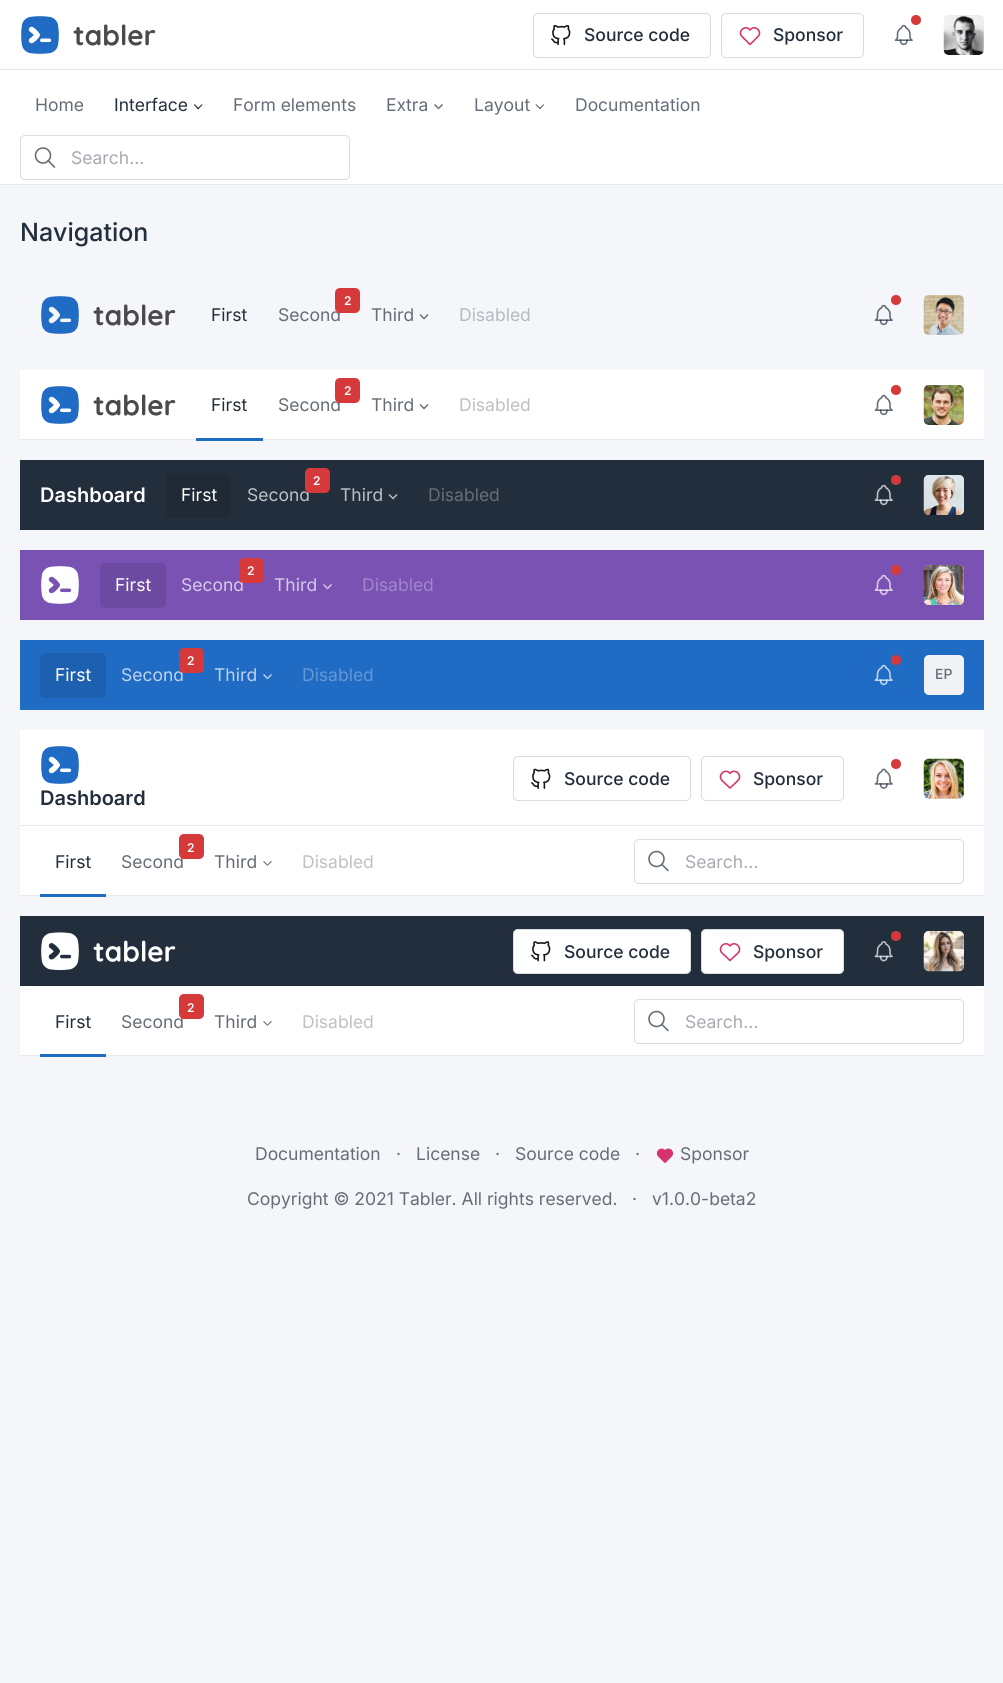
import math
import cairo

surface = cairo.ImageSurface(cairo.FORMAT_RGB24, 1003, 1683)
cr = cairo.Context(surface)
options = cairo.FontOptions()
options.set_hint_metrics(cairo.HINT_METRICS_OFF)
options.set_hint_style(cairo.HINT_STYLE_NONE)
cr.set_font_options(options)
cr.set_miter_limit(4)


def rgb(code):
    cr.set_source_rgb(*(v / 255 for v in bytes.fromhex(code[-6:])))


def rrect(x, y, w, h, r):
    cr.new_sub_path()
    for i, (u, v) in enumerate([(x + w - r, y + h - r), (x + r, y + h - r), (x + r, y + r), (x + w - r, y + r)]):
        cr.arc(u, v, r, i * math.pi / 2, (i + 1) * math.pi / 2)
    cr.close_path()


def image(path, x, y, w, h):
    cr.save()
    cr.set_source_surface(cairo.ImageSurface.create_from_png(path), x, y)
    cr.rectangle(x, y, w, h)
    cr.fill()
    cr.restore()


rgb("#f4f6fa")
cr.paint()
rgb("#ffffff")
cr.rectangle(0, 0, 1003, 69)
cr.fill()
rgb("#e6e8e9")
cr.rectangle(0, 69, 1003, 1)
cr.fill()
image("img/1.png", 21, 16, 135, 38)
rrect(533.5, 13.5, 177, 44, 4.5)
rgb("#dadcde")
cr.set_line_width(1)
cr.stroke()
image("img/2.png", 551, 24, 20, 22)
rrect(721.5, 13.5, 142, 44, 4.5)
cr.stroke()
cr.new_path()
cr.move_to(758, 36.5)
cr.line_to(750, 44.5)
cr.line_to(742, 36.5)
cr.move_to(742, 36.5)
cr.curve_to(737, 31.5, 745.5, 24, 750, 30)
cr.curve_to(754.5, 24, 763, 31.5, 758, 36.5)
rgb("#d6336c")
cr.set_line_width(1.6)
cr.set_line_cap(cairo.LINE_CAP_ROUND)
cr.set_line_join(cairo.LINE_JOIN_ROUND)
cr.stroke()
image("img/3.png", 894, 24, 19, 22)
rgb("#d63939")
cr.arc(916, 20, 5, 0, 2 * math.pi)
cr.fill()
rgb("#f0f2f6")
rrect(944, 15, 40, 40, 5)
cr.fill()
image("img/4.png", 943, 15, 41, 40)
rgb("#ffffff")
cr.rectangle(0, 70, 1003, 114)
cr.fill()
rgb("#e6e8e9")
cr.rectangle(0, 184, 1003, 1)
cr.fill()
rgb("#232e3c")
cr.new_path()
cr.move_to(197.5, 108.5)
cr.line_to(202, 104)
cr.line_to(202.5, 105)
cr.line_to(198, 109.5)
cr.close_path()
cr.fill()
cr.new_path()
cr.move_to(194, 105)
cr.line_to(194.5, 104)
cr.line_to(199, 108.5)
cr.line_to(198, 109.5)
cr.close_path()
cr.fill()
rgb("#656d77")
cr.new_path()
cr.move_to(443, 105)
cr.line_to(438.5, 109.5)
cr.line_to(438.5, 107.5)
cr.line_to(442, 104)
cr.close_path()
cr.fill()
cr.set_source_rgba(0.137, 0.18, 0.235, 0.7)
cr.new_path()
cr.move_to(438.5, 109.5)
cr.line_to(434, 105)
cr.line_to(435, 104)
cr.line_to(438.5, 107.5)
cr.close_path()
cr.fill()
rgb("#656d77")
cr.new_path()
cr.move_to(544, 105)
cr.line_to(540, 109.5)
cr.line_to(540, 107.5)
cr.line_to(543.5, 104)
cr.close_path()
cr.move_to(540, 109.5)
cr.line_to(535.5, 105)
cr.line_to(536, 104)
cr.line_to(540, 107.5)
cr.close_path()
cr.fill()
rrect(20.5, 135.5, 329, 44, 4.5)
rgb("#dadcde")
cr.set_line_width(1)
cr.set_line_cap(cairo.LINE_CAP_BUTT)
cr.set_line_join(cairo.LINE_JOIN_MITER)
cr.stroke()
cr.arc(43, 155.5, 7.5, 0, 2 * math.pi)
rgb("#656d77")
cr.set_line_width(1.6)
cr.stroke()
cr.new_path()
cr.move_to(54.5, 167)
cr.line_to(48, 160.5)
cr.set_line_cap(cairo.LINE_CAP_ROUND)
cr.set_line_join(cairo.LINE_JOIN_ROUND)
cr.stroke()
image("img/5.png", 41, 296, 135, 38)
rgb("#626a75")
cr.new_path()
cr.move_to(428.5, 315)
cr.line_to(424, 319.5)
cr.line_to(424, 317.5)
cr.line_to(427.5, 314)
cr.close_path()
cr.move_to(424, 319.5)
cr.line_to(419.5, 315)
cr.line_to(420.5, 314)
cr.line_to(424, 317.5)
cr.close_path()
cr.fill()
image("img/6.png", 874, 304, 19, 22)
rgb("#d63939")
cr.arc(896, 300, 5, 0, 2 * math.pi)
cr.fill()
rgb("#f0f2f6")
rrect(924, 295, 40, 40, 5)
cr.fill()
image("img/7.png", 923, 295, 41, 40)
rgb("#ffffff")
cr.rectangle(20, 370, 964, 69)
cr.fill()
rgb("#e6e8e9")
cr.rectangle(20, 439, 964, 1)
cr.fill()
image("img/1.png", 41, 386, 135, 38)
rgb("#206bc4")
cr.rectangle(196, 438, 67, 3)
cr.fill()
rgb("#656d77")
cr.new_path()
cr.move_to(428.5, 405)
cr.line_to(424, 409.5)
cr.line_to(424, 407.5)
cr.line_to(427.5, 404)
cr.close_path()
cr.move_to(424, 409.5)
cr.line_to(419.5, 405)
cr.line_to(420.5, 404)
cr.line_to(424, 407.5)
cr.close_path()
cr.fill()
image("img/3.png", 874, 394, 19, 22)
rgb("#d63939")
cr.arc(896, 390, 5, 0, 2 * math.pi)
cr.fill()
rgb("#f0f2f6")
rrect(924, 385, 40, 40, 5)
cr.fill()
image("img/8.png", 923, 385, 41, 40)
rgb("#232e3c")
cr.rectangle(20, 460, 964, 70)
cr.fill()
rgb("#202936")
rrect(166, 473, 65, 45, 5)
cr.fill()
rgb("#bdc0c5")
cr.new_path()
cr.move_to(397.5, 495)
cr.line_to(393, 499.5)
cr.line_to(393, 497.5)
cr.line_to(396.5, 494)
cr.close_path()
cr.move_to(393, 499.5)
cr.line_to(388.5, 495)
cr.line_to(389.5, 494)
cr.line_to(393, 497.5)
cr.close_path()
cr.fill()
image("img/9.png", 874, 484, 19, 22)
rgb("#d63939")
cr.arc(896, 480, 5, 0, 2 * math.pi)
cr.fill()
rgb("#f0f2f6")
rrect(924, 475, 40, 40, 5)
cr.fill()
image("img/10.png", 923, 475, 41, 40)
rgb("#7952b3")
cr.rectangle(20, 550, 964, 70)
cr.fill()
image("img/11.png", 41, 566, 38, 38)
rgb("#6d4aa1")
rrect(100, 563, 66, 45, 5)
cr.fill()
rgb("#d7cbe8")
cr.new_path()
cr.move_to(332, 585)
cr.line_to(327.5, 589.5)
cr.line_to(327.5, 587.5)
cr.line_to(331, 584)
cr.close_path()
cr.fill()
cr.set_source_rgba(1, 1, 1, 0.7)
cr.new_path()
cr.move_to(327.5, 589.5)
cr.line_to(323, 585)
cr.line_to(324, 584)
cr.line_to(327.5, 587.5)
cr.close_path()
cr.fill()
image("img/12.png", 874, 574, 19, 22)
rgb("#d63939")
cr.arc(896, 570, 5, 0, 2 * math.pi)
cr.fill()
rgb("#f0f2f6")
rrect(924, 565, 40, 40, 5)
cr.fill()
image("img/13.png", 923, 565, 41, 40)
rgb("#206bc4")
cr.rectangle(20, 640, 964, 70)
cr.fill()
rgb("#1d60b0")
rrect(40, 653, 66, 45, 5)
cr.fill()
rgb("#bcd3ed")
cr.new_path()
cr.move_to(272, 675)
cr.line_to(267.5, 679.5)
cr.line_to(267.5, 677.5)
cr.line_to(271, 674)
cr.close_path()
cr.fill()
cr.set_source_rgba(1, 1, 1, 0.7)
cr.new_path()
cr.move_to(267.5, 679.5)
cr.line_to(263, 675)
cr.line_to(264, 674)
cr.line_to(267.5, 677.5)
cr.close_path()
cr.fill()
image("img/14.png", 874, 664, 19, 22)
rgb("#d63939")
cr.arc(896, 660, 5, 0, 2 * math.pi)
cr.fill()
rgb("#f0f2f6")
rrect(924, 655, 40, 40, 5)
cr.fill()
rgb("#ffffff")
cr.rectangle(20, 730, 964, 95)
cr.fill()
rgb("#e6e8e9")
cr.rectangle(20, 825, 964, 1)
cr.fill()
rrect(513.5, 756.5, 177, 44, 4.5)
rgb("#dadcde")
cr.set_line_width(1)
cr.set_line_cap(cairo.LINE_CAP_BUTT)
cr.set_line_join(cairo.LINE_JOIN_MITER)
cr.stroke()
image("img/15.png", 531, 768, 20, 21)
rrect(701.5, 756.5, 142, 44, 4.5)
cr.stroke()
cr.new_path()
cr.move_to(738, 780.5)
cr.line_to(730, 788)
cr.line_to(722, 780.5)
cr.move_to(722, 780.5)
cr.curve_to(717, 775, 725.5, 767.5, 730, 773.5)
cr.curve_to(734.5, 767.5, 743, 775, 738, 780.5)
rgb("#d6336c")
cr.set_line_width(1.6)
cr.set_line_cap(cairo.LINE_CAP_ROUND)
cr.set_line_join(cairo.LINE_JOIN_ROUND)
cr.stroke()
image("img/16.png", 874, 768, 19, 21)
rgb("#d63939")
cr.arc(896, 764, 5, 0, 2 * math.pi)
cr.fill()
rgb("#f0f2f6")
rrect(924, 759, 40, 40, 5)
cr.fill()
image("img/17.png", 923, 758, 41, 41)
image("img/18.png", 41, 746, 38, 38)
for x, y, w, h, color in [
    (20, 826, 964, 69, "#ffffff"),
    (20, 895, 964, 1, "#e6e8e9"),
    (40, 894, 66, 3, "#206bc4"),
]:
    rgb(color)
    cr.rectangle(x, y, w, h)
    cr.fill()
rgb("#656d77")
cr.new_path()
cr.move_to(272, 861.5)
cr.line_to(267.5, 866)
cr.line_to(267.5, 864.5)
cr.line_to(271, 861)
cr.close_path()
cr.fill()
cr.new_path()
cr.move_to(267.5, 866)
cr.line_to(263, 861.5)
cr.line_to(264, 861)
cr.line_to(267.5, 864.5)
cr.close_path()
cr.fill()
rrect(634.5, 839.5, 329, 44, 4.5)
rgb("#dadcde")
cr.set_line_width(1)
cr.set_line_cap(cairo.LINE_CAP_BUTT)
cr.set_line_join(cairo.LINE_JOIN_MITER)
cr.stroke()
cr.arc(656.5, 859, 7.5, 0, 2 * math.pi)
rgb("#656d77")
cr.set_line_width(1.6)
cr.stroke()
cr.new_path()
cr.move_to(668, 870.5)
cr.line_to(662, 864.5)
cr.set_line_cap(cairo.LINE_CAP_ROUND)
cr.set_line_join(cairo.LINE_JOIN_ROUND)
cr.stroke()
rgb("#232e3c")
cr.rectangle(20, 916, 964, 70)
cr.fill()
image("img/19.png", 41, 932, 135, 39)
rgb("#ffffff")
rrect(513, 929, 178, 45, 5)
cr.fill()
rrect(513.5, 929.5, 177, 44, 4.5)
cr.set_source_rgba(0.396, 0.427, 0.467, 0.24)
cr.set_line_width(1)
cr.set_line_cap(cairo.LINE_CAP_BUTT)
cr.set_line_join(cairo.LINE_JOIN_MITER)
cr.stroke()
image("img/20.png", 531, 941, 20, 21)
rgb("#ffffff")
rrect(701, 929, 143, 45, 5)
cr.fill()
rrect(701.5, 929.5, 142, 44, 4.5)
cr.set_source_rgba(0.396, 0.427, 0.467, 0.24)
cr.stroke()
cr.new_path()
cr.move_to(738, 953)
cr.line_to(730, 960.5)
cr.line_to(722, 953)
cr.move_to(722, 953)
cr.curve_to(717, 947.5, 725.5, 940, 730, 946)
cr.curve_to(734.5, 940, 743, 947.5, 738, 953)
rgb("#d6336c")
cr.set_line_width(1.6)
cr.set_line_cap(cairo.LINE_CAP_ROUND)
cr.set_line_join(cairo.LINE_JOIN_ROUND)
cr.stroke()
rgb("#d63939")
cr.arc(896, 936, 5, 0, 2 * math.pi)
cr.fill()
image("img/21.png", 874, 941, 19, 21)
rgb("#f0f2f6")
rrect(924, 931, 40, 40, 5)
cr.fill()
image("img/22.png", 923, 931, 41, 41)
for x, y, w, h, color in [
    (20, 986, 964, 69, "#ffffff"),
    (20, 1055, 964, 1, "#e6e8e9"),
    (40, 1054, 66, 3, "#206bc4"),
]:
    rgb(color)
    cr.rectangle(x, y, w, h)
    cr.fill()
rgb("#656d77")
cr.new_path()
cr.move_to(272, 1021.5)
cr.line_to(267.5, 1026)
cr.line_to(267.5, 1024.5)
cr.line_to(271, 1021)
cr.close_path()
cr.fill()
cr.new_path()
cr.move_to(267.5, 1026)
cr.line_to(263, 1021.5)
cr.line_to(264, 1021)
cr.line_to(267.5, 1024.5)
cr.close_path()
cr.fill()
rrect(634.5, 999.5, 329, 44, 4.5)
rgb("#dadcde")
cr.set_line_width(1)
cr.set_line_cap(cairo.LINE_CAP_BUTT)
cr.set_line_join(cairo.LINE_JOIN_MITER)
cr.stroke()
cr.arc(656.5, 1019, 7.5, 0, 2 * math.pi)
rgb("#656d77")
cr.set_line_width(1.6)
cr.stroke()
cr.new_path()
cr.move_to(668, 1030.5)
cr.line_to(662, 1024.5)
cr.set_line_cap(cairo.LINE_CAP_ROUND)
cr.set_line_join(cairo.LINE_JOIN_ROUND)
cr.stroke()
image("img/23.png", 656, 1148, 18, 15)
cr.select_font_face("Inter Medium")
cr.set_font_size(17.5)
rgb("#232e3c")
cr.move_to(584, 41)
cr.show_text("Source code")
cr.move_to(773, 41)
cr.show_text("Sponsor")
cr.select_font_face("Inter")
rgb("#656d77")
cr.move_to(35, 111)
cr.show_text("Home")
rgb("#232e3c")
cr.move_to(114, 111)
cr.show_text("Interface")
rgb("#656d77")
for x, y, s in [
    (233, 111, "Form elements"),
    (386, 111, "Extra"),
    (474, 111, "Layout"),
    (575, 111, "Documentation"),
]:
    cr.move_to(x, y)
    cr.show_text(s)
rgb("#a7abb1")
cr.move_to(71, 164)
cr.show_text("Search…")
cr.select_font_face("Inter Medium")
cr.set_font_size(25)
rgb("#232e3c")
cr.move_to(20, 241)
cr.show_text("Navigation")
cr.select_font_face("Inter")
cr.set_font_size(17.5)
cr.move_to(211, 321)
cr.show_text("First")
rgb("#656d77")
cr.move_to(278, 321)
cr.show_text("Second")
rgb("#d63939")
rrect(335, 288, 25, 25, 5)
cr.fill()
cr.select_font_face("Inter SemiBold")
cr.set_font_size(12)
rgb("#ffffff")
cr.move_to(344, 305)
cr.show_text("2")
cr.select_font_face("Inter")
cr.set_font_size(17.5)
rgb("#656d77")
cr.move_to(371, 321)
cr.show_text("Third")
rgb("#b5bac1")
cr.move_to(459, 321)
cr.show_text("Disabled")
rgb("#232e3c")
cr.move_to(211, 411)
cr.show_text("First")
rgb("#656d77")
cr.move_to(278, 411)
cr.show_text("Second")
rgb("#d63939")
rrect(335, 378, 25, 25, 5)
cr.fill()
cr.select_font_face("Inter SemiBold")
cr.set_font_size(12)
rgb("#ffffff")
cr.move_to(344, 395)
cr.show_text("2")
cr.select_font_face("Inter")
cr.set_font_size(17.5)
rgb("#656d77")
cr.move_to(371, 411)
cr.show_text("Third")
rgb("#bdc0c5")
cr.move_to(459, 411)
cr.show_text("Disabled")
cr.select_font_face("Inter SemiBold")
cr.set_font_size(20)
rgb("#ffffff")
cr.move_to(40, 502)
cr.show_text("Dashboard")
cr.select_font_face("Inter")
cr.set_font_size(17.5)
cr.move_to(181, 501)
cr.show_text("First")
rgb("#bdc0c5")
cr.move_to(247, 501)
cr.show_text("Second")
rgb("#d63939")
rrect(305, 468, 25, 25, 5)
cr.fill()
cr.select_font_face("Inter SemiBold")
cr.set_font_size(12)
rgb("#ffffff")
cr.move_to(313, 485)
cr.show_text("2")
cr.select_font_face("Inter")
cr.set_font_size(17.5)
rgb("#bdc0c5")
cr.move_to(340, 501)
cr.show_text("Third")
rgb("#656d77")
cr.move_to(428, 501)
cr.show_text("Disabled")
rgb("#ffffff")
cr.move_to(115, 591)
cr.show_text("First")
rgb("#d7cbe8")
cr.move_to(181, 591)
cr.show_text("Second")
rgb("#d63939")
rrect(239, 558, 25, 25, 5)
cr.fill()
cr.select_font_face("Inter SemiBold")
cr.set_font_size(12)
rgb("#ffffff")
cr.move_to(247, 575)
cr.show_text("2")
cr.select_font_face("Inter")
cr.set_font_size(17.5)
rgb("#d7cbe8")
cr.move_to(274, 591)
cr.show_text("Third")
rgb("#a186ca")
cr.move_to(362, 591)
cr.show_text("Disabled")
rgb("#ffffff")
cr.move_to(55, 681)
cr.show_text("First")
rgb("#bcd3ed")
cr.move_to(121, 681)
cr.show_text("Second")
rgb("#d63939")
rrect(179, 648, 25, 25, 5)
cr.fill()
cr.select_font_face("Inter SemiBold")
cr.set_font_size(12)
rgb("#ffffff")
cr.move_to(187, 665)
cr.show_text("2")
cr.select_font_face("Inter")
cr.set_font_size(17.5)
rgb("#bcd3ed")
cr.move_to(214, 681)
cr.show_text("Third")
rgb("#6397d6")
cr.move_to(302, 681)
cr.show_text("Disabled")
cr.select_font_face("Inter Medium")
cr.set_font_size(14)
rgb("#656d77")
cr.move_to(935, 679)
cr.show_text("EP")
cr.set_font_size(17.5)
rgb("#232e3c")
cr.move_to(564, 785)
cr.show_text("Source code")
cr.move_to(753, 785)
cr.show_text("Sponsor")
cr.select_font_face("Inter SemiBold")
cr.set_font_size(20)
cr.move_to(40, 805)
cr.show_text("Dashboard")
cr.select_font_face("Inter")
cr.set_font_size(17.5)
cr.move_to(55, 868)
cr.show_text("First")
rgb("#656d77")
cr.move_to(121, 868)
cr.show_text("Second")
rgb("#d63939")
rrect(179, 834, 25, 25, 5)
cr.fill()
cr.select_font_face("Inter SemiBold")
cr.set_font_size(12)
rgb("#ffffff")
cr.move_to(187, 852)
cr.show_text("2")
cr.select_font_face("Inter")
cr.set_font_size(17.5)
rgb("#656d77")
cr.move_to(214, 868)
cr.show_text("Third")
rgb("#bdc0c5")
cr.move_to(302, 868)
cr.show_text("Disabled")
rgb("#a7abb1")
cr.move_to(685, 868)
cr.show_text("Search…")
cr.select_font_face("Inter Medium")
rgb("#232e3c")
cr.move_to(564, 958)
cr.show_text("Source code")
cr.move_to(753, 958)
cr.show_text("Sponsor")
cr.select_font_face("Inter")
cr.move_to(55, 1028)
cr.show_text("First")
rgb("#656d77")
cr.move_to(121, 1028)
cr.show_text("Second")
rgb("#d63939")
rrect(179, 994, 25, 25, 5)
cr.fill()
cr.select_font_face("Inter SemiBold")
cr.set_font_size(12)
rgb("#ffffff")
cr.move_to(187, 1012)
cr.show_text("2")
cr.select_font_face("Inter")
cr.set_font_size(17.5)
rgb("#656d77")
cr.move_to(214, 1028)
cr.show_text("Third")
rgb("#bdc0c5")
cr.move_to(302, 1028)
cr.show_text("Disabled")
rgb("#a7abb1")
cr.move_to(685, 1028)
cr.show_text("Search…")
rgb("#656d77")
for x, y, s in [
    (255, 1160, "Documentation"),
    (396, 1160, "·"),
    (416, 1160, "License"),
    (495, 1160, "·"),
    (515, 1160, "Source code"),
    (635, 1160, "·"),
    (680, 1160, "Sponsor"),
    (247, 1205, "Copyright © 2021 Tabler. All rights reserved."),
    (632, 1205, "·"),
    (652, 1205, "v1.0.0-beta2"),
]:
    cr.move_to(x, y)
    cr.show_text(s)
surface.write_to_png("page.png")
